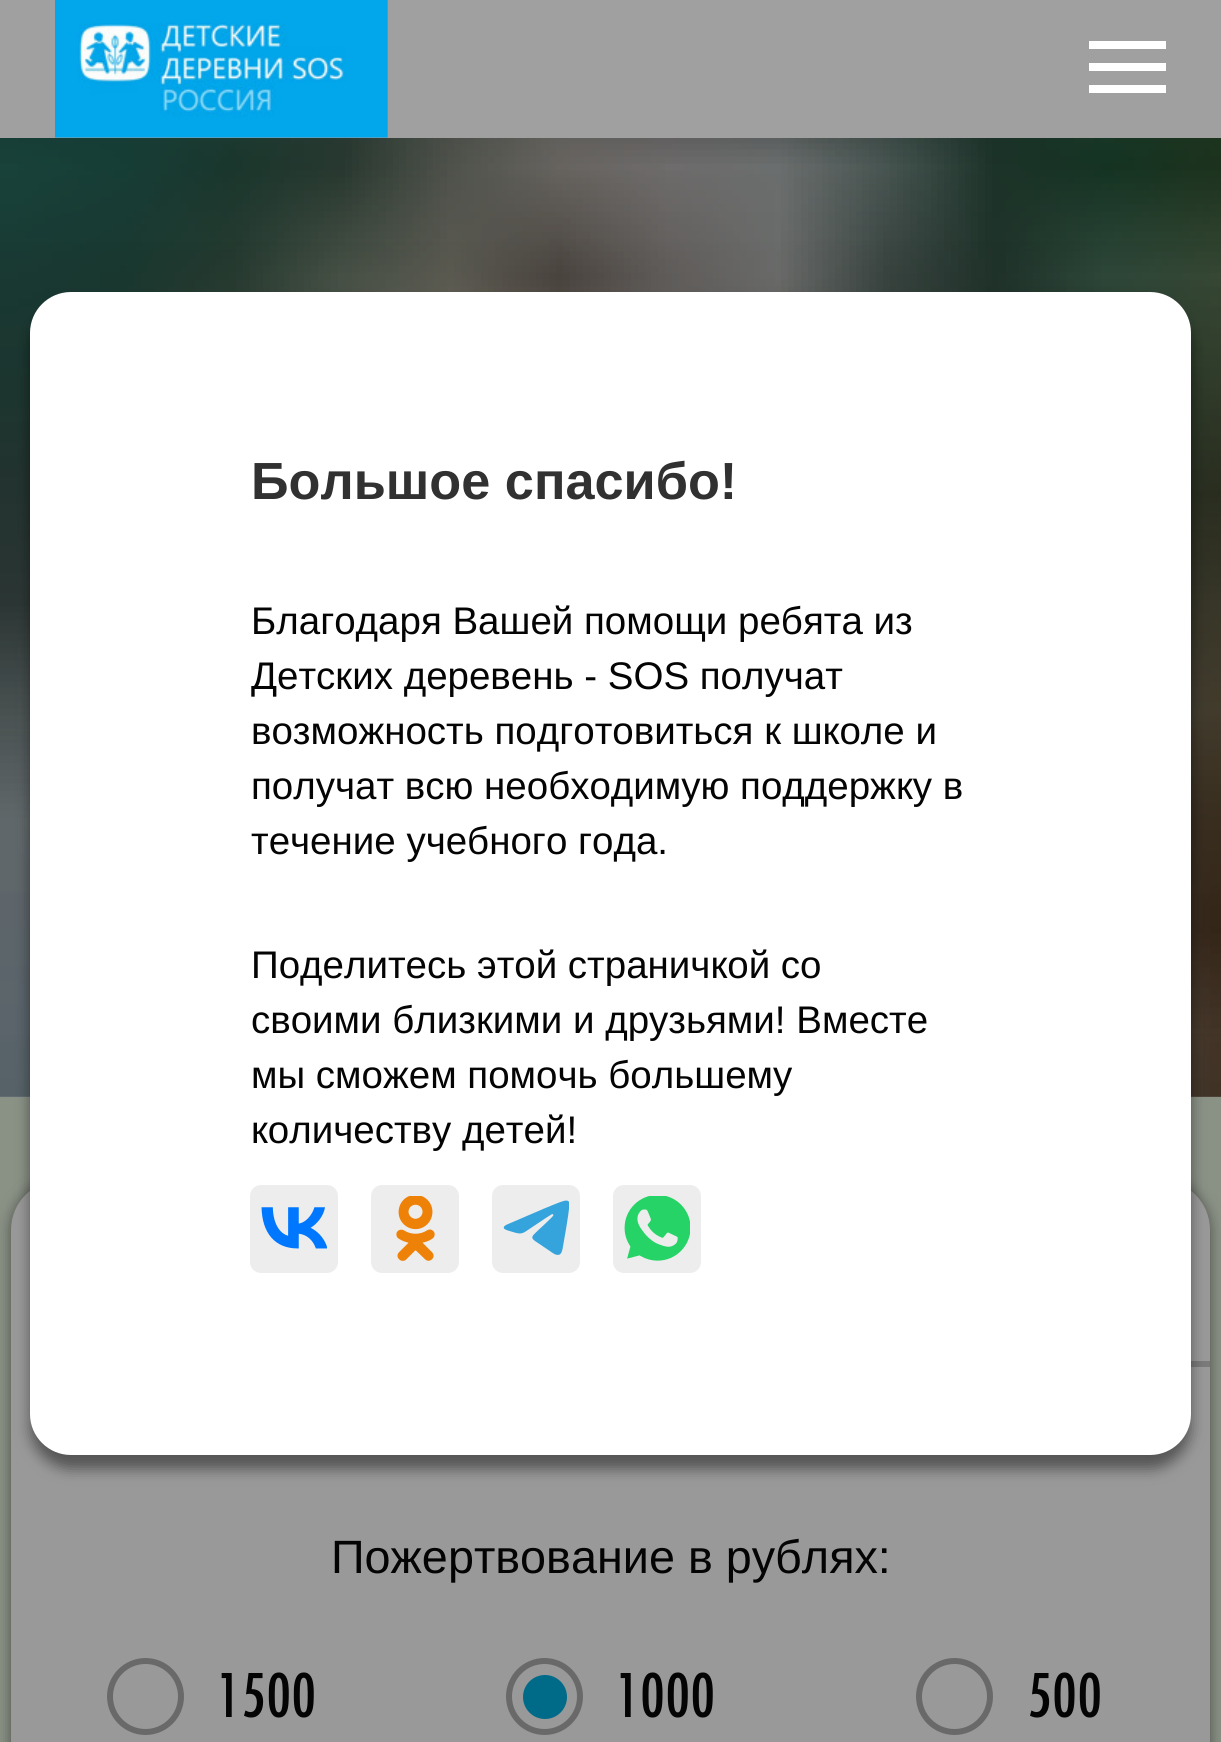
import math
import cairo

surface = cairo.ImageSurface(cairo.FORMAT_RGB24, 1221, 1742)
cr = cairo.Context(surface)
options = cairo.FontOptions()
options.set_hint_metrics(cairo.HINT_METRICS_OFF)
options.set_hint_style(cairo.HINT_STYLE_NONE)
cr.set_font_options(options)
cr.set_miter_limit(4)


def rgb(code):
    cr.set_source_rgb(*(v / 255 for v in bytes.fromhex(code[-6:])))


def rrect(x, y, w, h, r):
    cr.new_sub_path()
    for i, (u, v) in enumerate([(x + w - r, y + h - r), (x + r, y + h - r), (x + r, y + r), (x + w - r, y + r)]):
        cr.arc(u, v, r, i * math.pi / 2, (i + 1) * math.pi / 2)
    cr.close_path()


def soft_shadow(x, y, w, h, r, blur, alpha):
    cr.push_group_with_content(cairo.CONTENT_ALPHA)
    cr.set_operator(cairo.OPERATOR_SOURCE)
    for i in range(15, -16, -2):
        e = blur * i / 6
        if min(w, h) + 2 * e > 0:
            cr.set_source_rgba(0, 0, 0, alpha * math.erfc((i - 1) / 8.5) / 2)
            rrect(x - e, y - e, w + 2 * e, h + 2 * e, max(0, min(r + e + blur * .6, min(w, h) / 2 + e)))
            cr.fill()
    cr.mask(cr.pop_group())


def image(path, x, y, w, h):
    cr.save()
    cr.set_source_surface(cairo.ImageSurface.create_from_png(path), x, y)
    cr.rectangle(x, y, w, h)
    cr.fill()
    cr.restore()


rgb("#ffffff")
cr.paint()
image("img/6.png", 0, 138, 1221, 959)
gradient = cairo.LinearGradient(610, 137, 611, 1097)
gradient.add_color_stop_rgba(0, 0.271, 0.271, 0.271, 0.3)
gradient.add_color_stop_rgba(1, 0.157, 0.157, 0.157, 0.4)
cr.set_source(gradient)
cr.rectangle(0, 138, 1221, 959)
cr.fill()
rgb("#8a9185")
cr.rectangle(0, 1097, 1221, 645)
cr.fill()
rgb("#000000")
soft_shadow(11, 1180, 1199, 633, 50, 7, 0.45)
rgb("#999999")
rrect(11, 1180, 1199, 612, 50)
cr.fill()
rgb("#7a7a7a")
cr.rectangle(1191, 1361, 19, 6)
cr.fill()
rgb("#000000")
soft_shadow(30, 305, 1161, 1164, 41, 7, 0.45)
rgb("#ffffff")
rrect(30, 292, 1161, 1163, 41)
cr.fill()
rgb("#ededed")
rrect(250, 1185, 88, 88, 11)
cr.fill()
image("img/1.png", 261, 1207, 66, 42)
rrect(371, 1185, 88, 88, 11)
cr.fill()
image("img/2.png", 396, 1196, 39, 65)
rrect(492, 1185, 88, 88, 11)
cr.fill()
image("img/3.png", 503, 1200, 66, 55)
rrect(613, 1185, 88, 88, 11)
cr.fill()
image("img/4.png", 624, 1196, 66, 65)
rgb("#a0a0a0")
cr.rectangle(0, 0, 1221, 138)
cr.fill()
image("img/5.png", 55, 0, 333, 138)
for x, y, w, h, color in [
    (1089, 41, 77, 8, "#ffffff"),
    (1089, 63, 77, 8, "#ffffff"),
    (1089, 85, 77, 8, "#ffffff"),
]:
    rgb(color)
    cr.rectangle(x, y, w, h)
    cr.fill()
cr.arc(145.5, 1696.5, 35.5, 0, 2 * math.pi)
rgb("#6a6969")
cr.set_line_width(6)
cr.stroke()
cr.arc(544.5, 1696.5, 35.5, 0, 2 * math.pi)
cr.stroke()
rgb("#006a89")
cr.arc(545, 1697, 22, 0, 2 * math.pi)
cr.fill()
cr.arc(954.5, 1696.5, 35.5, 0, 2 * math.pi)
rgb("#6a6969")
cr.stroke()
cr.select_font_face("Liberation Sans", cairo.FONT_SLANT_NORMAL, cairo.FONT_WEIGHT_BOLD)
cr.set_font_size(52.25)
rgb("#323131")
cr.move_to(251, 499)
cr.show_text("Большое спасибо!")
cr.select_font_face("Liberation Sans")
cr.set_font_size(38.5)
rgb("#040404")
for x, y, s in [
    (251, 634, "Благодаря Вашей помощи ребята из"),
    (251, 689, "Детских деревень - SOS получат"),
    (251, 744, "возможность подготовиться к школе и"),
    (251, 799, "получат всю необходимую поддержку в"),
    (251, 854, "течение учебного года."),
    (251, 978, "Поделитесь этой страничкой со"),
    (251, 1033, "своими близкими и друзьями! Вместе"),
    (251, 1088, "мы сможем помочь большему"),
    (251, 1143, "количеству детей!"),
]:
    cr.move_to(x, y)
    cr.show_text(s)
cr.set_font_size(46.75)
cr.move_to(331, 1573)
cr.show_text("Пожертвование в рублях:")
cr.select_font_face("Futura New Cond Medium")
cr.set_font_size(66)
for x, y, s in [
    (216, 1717, "1500"),
    (615, 1717, "1000"),
    (1027, 1717, "500"),
]:
    cr.move_to(x, y)
    cr.show_text(s)
surface.write_to_png("page.png")
